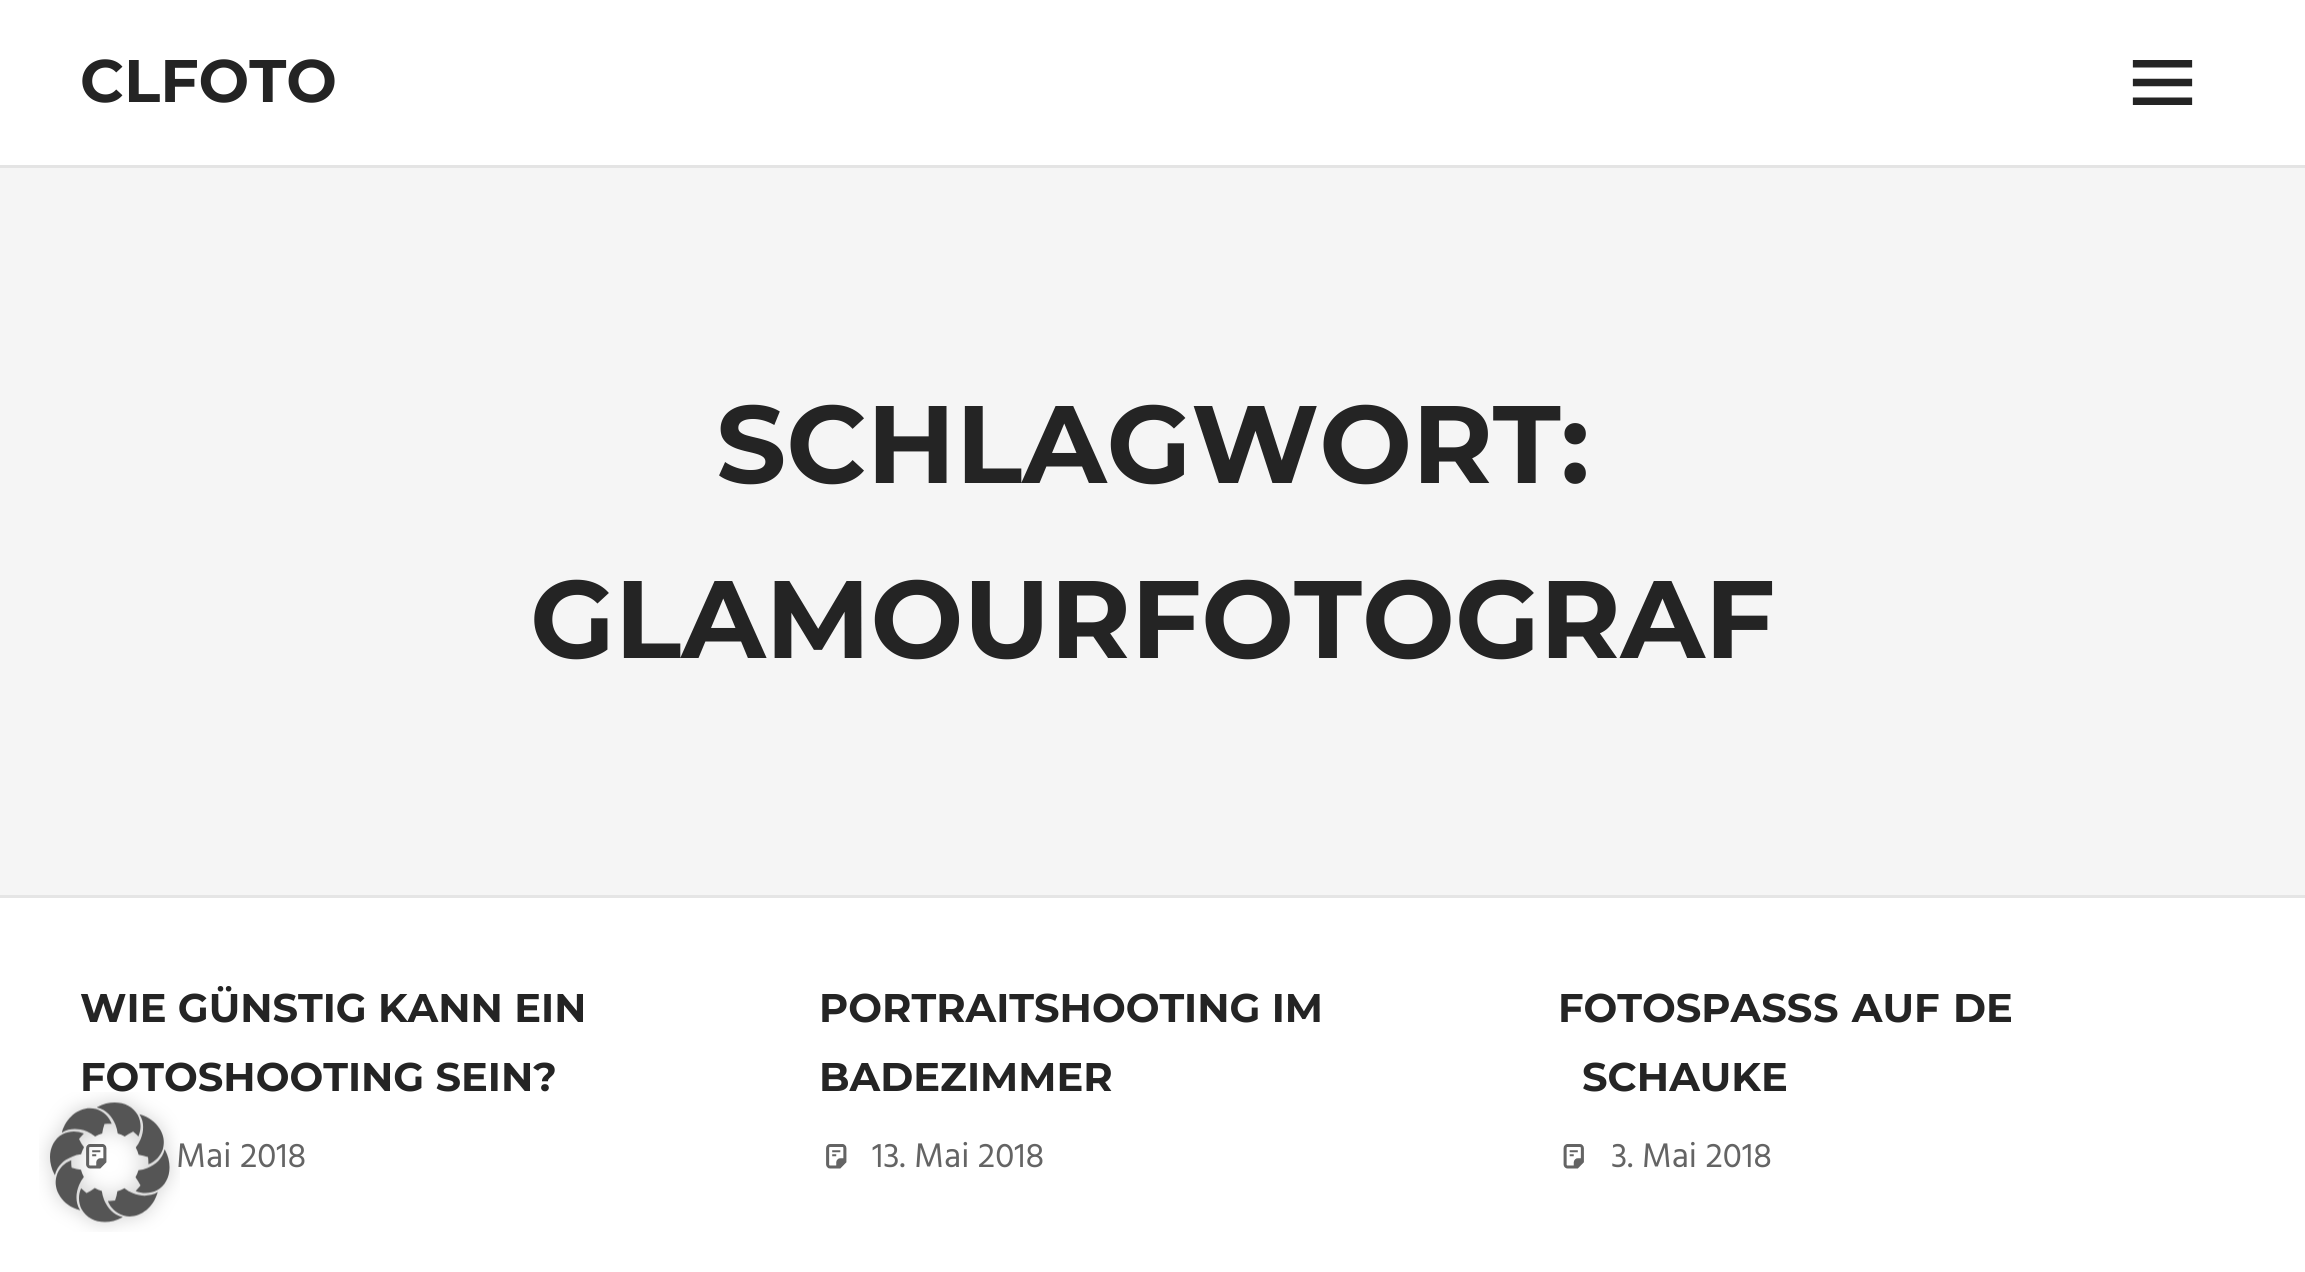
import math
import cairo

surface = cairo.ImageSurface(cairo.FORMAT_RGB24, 2305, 1272)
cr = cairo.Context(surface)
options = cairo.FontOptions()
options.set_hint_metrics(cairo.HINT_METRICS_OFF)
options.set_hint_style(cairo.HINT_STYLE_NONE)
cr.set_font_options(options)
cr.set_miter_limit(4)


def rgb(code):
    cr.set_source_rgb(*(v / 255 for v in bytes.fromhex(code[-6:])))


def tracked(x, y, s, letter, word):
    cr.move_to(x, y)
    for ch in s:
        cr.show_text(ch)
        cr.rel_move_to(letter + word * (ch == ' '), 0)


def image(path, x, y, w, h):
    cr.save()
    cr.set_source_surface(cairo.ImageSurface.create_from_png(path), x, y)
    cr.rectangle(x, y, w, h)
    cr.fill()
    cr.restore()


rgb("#ffffff")
cr.paint()
rgb("#e4e4e4")
cr.rectangle(0, 165, 2305, 3)
cr.fill()
image("img/1.png", 2132, 60, 61, 45)
rgb("#f5f5f5")
cr.rectangle(0, 168, 2305, 727)
cr.fill()
rgb("#e5e5e5")
cr.rectangle(0, 895, 2305, 3)
cr.fill()
image("img/2.png", 86, 1144, 21, 25)
image("img/2.png", 826, 1144, 21, 25)
image("img/3.png", 1563, 1144, 21, 25)
cr.select_font_face("Montserrat", cairo.FONT_SLANT_NORMAL, cairo.FONT_WEIGHT_BOLD)
cr.set_font_size(60)
rgb("#242424")
cr.move_to(80, 102)
cr.show_text("CLFOTO")
cr.set_font_size(110)
cr.move_to(716, 483)
cr.show_text("SCHLAGWORT:")
cr.move_to(530, 658)
cr.show_text("GLAMOURFOTOGRAF")
cr.set_font_size(40)
cr.move_to(80, 1022)
cr.show_text("WIE GÜNSTIG KANN EIN")
cr.move_to(80, 1091)
cr.show_text("FOTOSHOOTING SEIN?")
cr.select_font_face("Hind")
cr.set_font_size(35)
rgb("#646464")
cr.move_to(176, 1167)
cr.show_text("Mai 2018")
cr.select_font_face("Montserrat", cairo.FONT_SLANT_NORMAL, cairo.FONT_WEIGHT_BOLD)
cr.set_font_size(40)
rgb("#242424")
cr.move_to(819, 1022)
cr.show_text("PORTRAITSHOOTING IM")
cr.move_to(819, 1091)
cr.show_text("BADEZIMMER")
cr.select_font_face("Hind")
cr.set_font_size(35)
rgb("#646464")
cr.move_to(872, 1167)
cr.show_text("13. Mai 2018")
cr.select_font_face("Montserrat", cairo.FONT_SLANT_NORMAL, cairo.FONT_WEIGHT_BOLD)
cr.set_font_size(40)
rgb("#242424")
cr.move_to(1558, 1022)
cr.show_text("FOTOSPASS")
tracked(1813, 1022, "S AUF DE", 0, 2)
cr.move_to(1582, 1091)
cr.show_text("SCHAUKE")
cr.select_font_face("Hind")
cr.set_font_size(35)
rgb("#646464")
cr.move_to(1611, 1167)
cr.show_text("3. Mai 2018")
image("img/4.png", 39, 1092, 141, 140)
surface.write_to_png("page.png")
